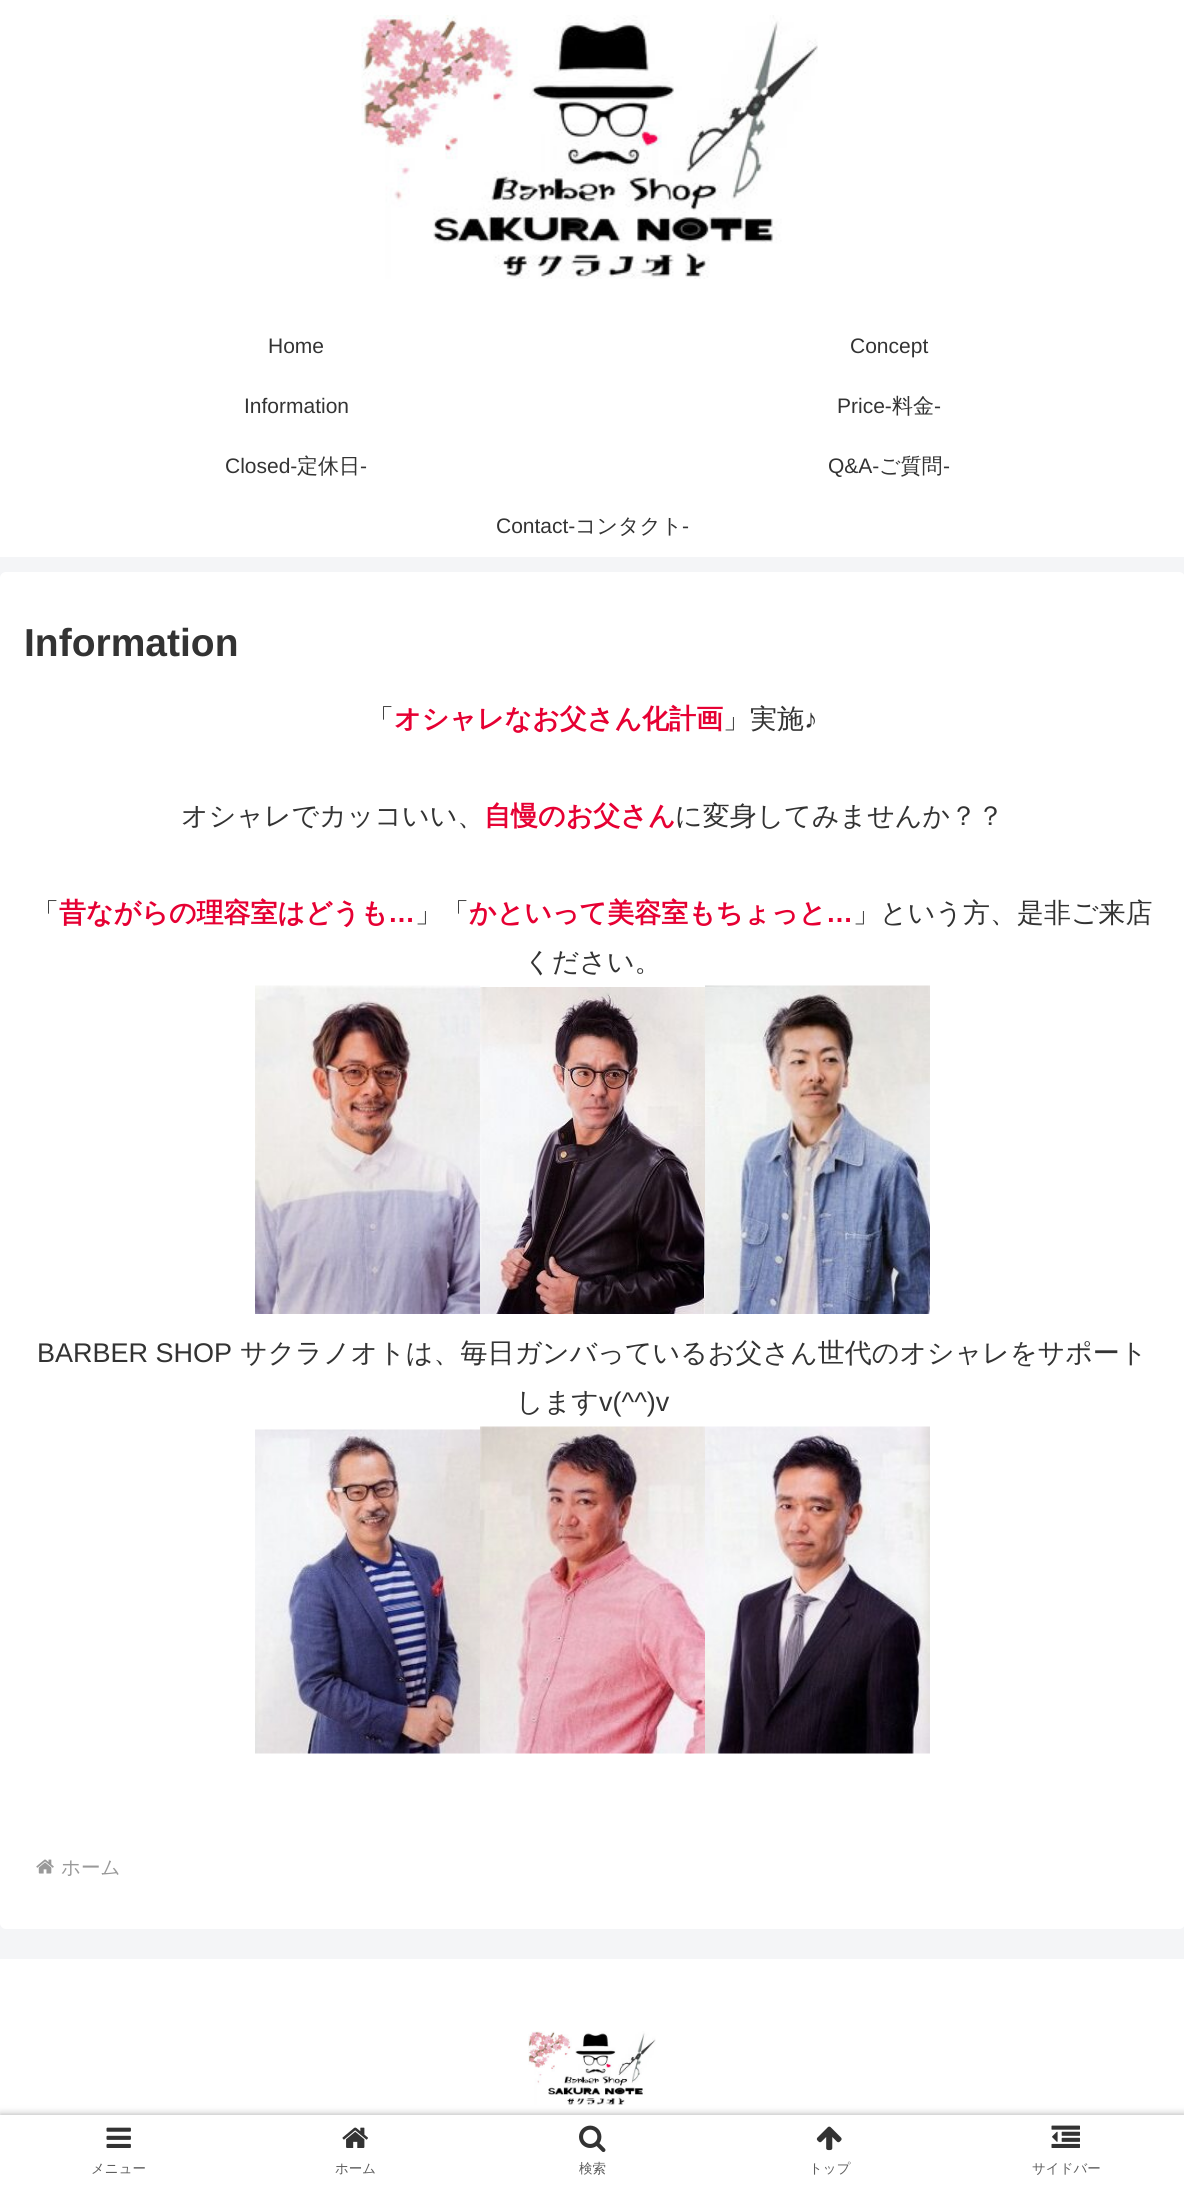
import math
import cairo

surface = cairo.ImageSurface(cairo.FORMAT_RGB24, 1184, 2190)
cr = cairo.Context(surface)
options = cairo.FontOptions()
options.set_hint_metrics(cairo.HINT_METRICS_OFF)
options.set_hint_style(cairo.HINT_STYLE_NONE)
cr.set_font_options(options)
cr.set_miter_limit(4)


def rgb(code):
    cr.set_source_rgb(*(v / 255 for v in bytes.fromhex(code[-6:])))


def rrect(x, y, w, h, r):
    cr.new_sub_path()
    for i, (u, v) in enumerate([(x + w - r, y + h - r), (x + r, y + h - r), (x + r, y + r), (x + w - r, y + r)]):
        cr.arc(u, v, r, i * math.pi / 2, (i + 1) * math.pi / 2)
    cr.close_path()


def soft_shadow(x, y, w, h, r, blur, alpha):
    cr.push_group_with_content(cairo.CONTENT_ALPHA)
    cr.set_operator(cairo.OPERATOR_SOURCE)
    for i in range(15, -16, -2):
        e = blur * i / 6
        if min(w, h) + 2 * e > 0:
            cr.set_source_rgba(0, 0, 0, alpha * math.erfc((i - 1) / 8.5) / 2)
            rrect(x - e, y - e, w + 2 * e, h + 2 * e, max(0, min(r + e + blur * .6, min(w, h) / 2 + e)))
            cr.fill()
    cr.mask(cr.pop_group())


def image(path, x, y, w, h):
    cr.save()
    cr.set_source_surface(cairo.ImageSurface.create_from_png(path), x, y)
    cr.rectangle(x, y, w, h)
    cr.fill()
    cr.restore()


rgb("#f4f5f7")
cr.paint()
rgb("#ffffff")
cr.rectangle(0, 0, 1184, 557)
cr.fill()
image("img/1.png", 361, 15, 457, 264)
rrect(0, 572, 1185, 1357, 6)
cr.fill()
image("img/2.png", 255, 985, 225, 329)
image("img/3.png", 480, 987, 225, 327)
image("img/4.png", 705, 985, 225, 329)
image("img/5.png", 255, 1429, 225, 325)
image("img/6.png", 480, 1426, 225, 328)
image("img/7.png", 705, 1426, 225, 328)
image("img/8.png", 36, 1859, 18, 15)
cr.rectangle(0, 1959, 1184, 156)
cr.fill()
image("img/9.png", 528, 2031, 128, 74)
rgb("#a9a9a9")
soft_shadow(0, 2115, 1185, 75, 0, 4, 1)
rgb("#ffffff")
cr.rectangle(0, 2115, 1184, 75)
cr.fill()
image("img/10.png", 106, 2127, 25, 21)
image("img/11.png", 342, 2127, 26, 21)
image("img/12.png", 579, 2125, 27, 28)
image("img/13.png", 816, 2126, 26, 25)
image("img/14.png", 1051, 2125, 29, 23)
cr.select_font_face("Liberation Sans")
cr.set_font_size(21)
rgb("#333333")
for x, y, s in [
    (268, 353, "Home"),
    (850, 353, "Concept"),
    (244, 413, "Information"),
    (837, 413, "Price-"),
]:
    cr.move_to(x, y)
    cr.show_text(s)
cr.select_font_face("WenQuanYi Zen Hei Medium")
cr.move_to(892, 413)
cr.show_text("料金")
cr.select_font_face("Liberation Sans")
cr.move_to(934, 413)
cr.show_text("-")
cr.move_to(225, 473)
cr.show_text("Closed-")
cr.select_font_face("WenQuanYi Zen Hei Medium")
cr.move_to(297, 473)
cr.show_text("定休日")
cr.select_font_face("Liberation Sans")
cr.move_to(360, 473)
cr.show_text("-")
cr.move_to(828, 473)
cr.show_text("Q&A-")
cr.select_font_face("WenQuanYi Zen Hei Medium")
cr.move_to(879, 473)
cr.show_text("ご質問")
cr.select_font_face("Liberation Sans")
cr.move_to(943, 473)
cr.show_text("-")
cr.move_to(496, 533)
cr.show_text("Contact-")
cr.select_font_face("WenQuanYi Zen Hei Medium")
cr.move_to(575, 533)
cr.show_text("コンタクト")
cr.select_font_face("Liberation Sans")
cr.move_to(682, 533)
cr.show_text("-")
cr.select_font_face("Liberation Sans", cairo.FONT_SLANT_NORMAL, cairo.FONT_WEIGHT_BOLD)
cr.set_font_size(39)
cr.move_to(24, 656)
cr.show_text("Information")
cr.select_font_face("WenQuanYi Zen Hei Medium")
cr.set_font_size(27)
cr.move_to(367, 728)
cr.show_text("「")
cr.select_font_face("WenQuanYi Zen Hei", cairo.FONT_SLANT_NORMAL, cairo.FONT_WEIGHT_BOLD)
rgb("#e60033")
cr.move_to(394, 728)
cr.show_text("オシャレなお父さん化計画")
cr.select_font_face("WenQuanYi Zen Hei Medium")
rgb("#333333")
cr.move_to(723, 728)
cr.show_text("」実施")
cr.select_font_face("Liberation Sans")
cr.move_to(804, 728)
cr.show_text("♪")
cr.select_font_face("WenQuanYi Zen Hei Medium")
cr.move_to(181, 825)
cr.show_text("オシャレでカッコいい、")
cr.select_font_face("WenQuanYi Zen Hei", cairo.FONT_SLANT_NORMAL, cairo.FONT_WEIGHT_BOLD)
rgb("#e60033")
cr.move_to(484, 825)
cr.show_text("自慢のお父さん")
cr.select_font_face("WenQuanYi Zen Hei Medium")
rgb("#333333")
cr.move_to(675, 825)
cr.show_text("に変身してみませんか？？")
cr.move_to(32, 922)
cr.show_text("「")
cr.select_font_face("WenQuanYi Zen Hei", cairo.FONT_SLANT_NORMAL, cairo.FONT_WEIGHT_BOLD)
rgb("#e60033")
cr.move_to(59, 922)
cr.show_text("昔ながらの理容室はどうも")
cr.select_font_face("Liberation Sans", cairo.FONT_SLANT_NORMAL, cairo.FONT_WEIGHT_BOLD)
cr.move_to(388, 922)
cr.show_text("…")
cr.select_font_face("WenQuanYi Zen Hei Medium")
rgb("#333333")
cr.move_to(415, 922)
cr.show_text("」「")
cr.select_font_face("WenQuanYi Zen Hei", cairo.FONT_SLANT_NORMAL, cairo.FONT_WEIGHT_BOLD)
rgb("#e60033")
cr.move_to(469, 922)
cr.show_text("かといって美容室もちょっと")
cr.select_font_face("Liberation Sans", cairo.FONT_SLANT_NORMAL, cairo.FONT_WEIGHT_BOLD)
cr.move_to(826, 922)
cr.show_text("…")
cr.select_font_face("WenQuanYi Zen Hei Medium")
rgb("#333333")
cr.move_to(853, 922)
cr.show_text("」という方、是非ご来店")
cr.move_to(524, 971)
cr.show_text("ください。")
cr.select_font_face("Liberation Sans")
cr.move_to(37, 1362)
cr.show_text("BARBER SHOP")
cr.select_font_face("WenQuanYi Zen Hei Medium")
cr.move_to(240, 1362)
cr.show_text("サクラノオトは、毎日ガンバっているお父さん世代のオシャレをサポート")
cr.move_to(516, 1411)
cr.show_text("します")
cr.select_font_face("Liberation Sans")
cr.move_to(599, 1411)
cr.show_text("v(^^)v")
cr.select_font_face("WenQuanYi Zen Hei Medium")
cr.set_font_size(19.5)
rgb("#999999")
cr.move_to(61, 1874)
cr.show_text("ホーム")
cr.set_font_size(13.5)
rgb("#5c5c5c")
for x, y, s in [
    (91, 2173, "メニュー"),
    (335, 2173, "ホーム"),
    (579, 2173, "検索"),
    (809, 2173, "トップ"),
    (1032, 2173, "サイドバー"),
]:
    cr.move_to(x, y)
    cr.show_text(s)
surface.write_to_png("page.png")
